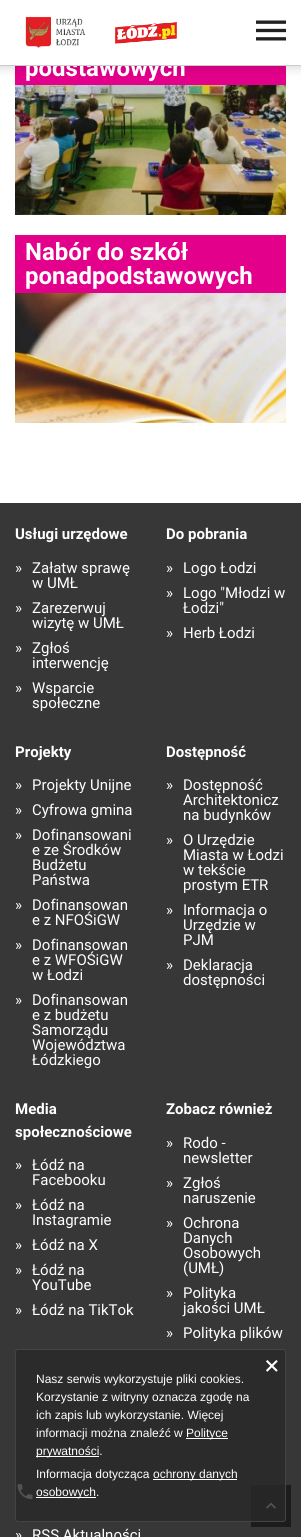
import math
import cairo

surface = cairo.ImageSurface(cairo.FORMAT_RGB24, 301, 1537)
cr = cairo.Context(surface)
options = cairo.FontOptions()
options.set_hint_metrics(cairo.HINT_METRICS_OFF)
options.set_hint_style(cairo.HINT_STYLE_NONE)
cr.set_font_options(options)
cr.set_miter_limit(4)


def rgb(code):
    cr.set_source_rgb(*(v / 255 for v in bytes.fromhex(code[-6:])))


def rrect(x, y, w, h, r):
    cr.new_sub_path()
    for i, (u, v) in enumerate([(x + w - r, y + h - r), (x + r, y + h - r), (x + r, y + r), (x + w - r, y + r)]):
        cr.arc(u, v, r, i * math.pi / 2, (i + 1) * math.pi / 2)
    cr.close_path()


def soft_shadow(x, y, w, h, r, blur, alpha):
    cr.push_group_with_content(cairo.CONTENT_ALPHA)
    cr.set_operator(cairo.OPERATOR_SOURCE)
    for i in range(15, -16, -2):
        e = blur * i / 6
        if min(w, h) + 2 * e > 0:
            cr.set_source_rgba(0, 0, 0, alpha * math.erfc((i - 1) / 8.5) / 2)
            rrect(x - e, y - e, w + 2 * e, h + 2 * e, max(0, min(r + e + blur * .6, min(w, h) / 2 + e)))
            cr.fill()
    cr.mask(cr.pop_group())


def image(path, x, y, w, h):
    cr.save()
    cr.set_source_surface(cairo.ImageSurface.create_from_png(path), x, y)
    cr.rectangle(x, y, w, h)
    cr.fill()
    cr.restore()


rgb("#ffffff")
cr.paint()
rgb("#e3008a")
cr.rectangle(15, 66, 271, 19)
cr.fill()
rgb("#000000")
soft_shadow(-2, -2, 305, 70, 0, 5, 0.15)
rgb("#ffffff")
cr.rectangle(0, 0, 301, 65)
cr.fill()
image("img/1.png", 25, 16, 61, 32)
image("img/2.png", 115, 22, 62, 22)
image("img/3.png", 256, 20, 30, 21)
image("img/4.png", 15, 85, 271, 130)
rgb("#e3008a")
cr.rectangle(15, 235, 271, 58)
cr.fill()
image("img/5.png", 15, 293, 271, 130)
rgb("#373737")
cr.rectangle(0, 503, 301, 1034)
cr.fill()
image("img/6.png", 17, 1484, 16, 16)
rgb("#1c1c1c")
cr.rectangle(251, 1485, 40, 42)
cr.fill()
image("img/7.png", 266, 1502, 10, 7)
cr.set_source_rgba(0.161, 0.161, 0.161, 0.8)
rrect(15.5, 1349.5, 270, 172, 2.5)
cr.fill_preserve()
rgb("#444444")
cr.set_line_width(1)
cr.stroke()
for x, y, w, h, color in [
    (186, 1438, 42, 1, "#ffffff"),
    (36, 1456, 63, 1, "#ffffff"),
    (153, 1479, 84, 1, "#ffffff"),
    (36, 1497, 60, 1, "#ffffff"),
]:
    rgb(color)
    cr.rectangle(x, y, w, h)
    cr.fill()
cr.select_font_face("Roboto", cairo.FONT_SLANT_NORMAL, cairo.FONT_WEIGHT_BOLD)
cr.set_font_size(24)
cr.move_to(25, 76)
cr.show_text("podstawowych")
rgb("#cccccc")
cr.rectangle(0, 65, 301, 1)
cr.fill()
rgb("#ffffff")
cr.move_to(25, 260)
cr.show_text("Nabór do szkół")
cr.move_to(25, 284)
cr.show_text("ponadpodstawowych")
cr.set_font_size(15)
cr.move_to(15, 539)
cr.show_text("Usługi urzędowe")
cr.select_font_face("Roboto")
for x, y, s in [
    (15, 573, "»"),
    (32, 573, "Załatw sprawę"),
    (32, 588, "w UMŁ"),
    (15, 613, "»"),
    (32, 613, "Zarezerwuj"),
    (32, 628, "wizytę w UMŁ"),
    (15, 653, "»"),
    (32, 653, "Zgłoś"),
    (32, 668, "interwencję"),
    (15, 693, "»"),
    (32, 693, "Wsparcie"),
    (32, 708, "społeczne"),
]:
    cr.move_to(x, y)
    cr.show_text(s)
cr.select_font_face("Roboto", cairo.FONT_SLANT_NORMAL, cairo.FONT_WEIGHT_BOLD)
cr.move_to(166, 539)
cr.show_text("Do pobrania")
cr.select_font_face("Roboto")
for x, y, s in [
    (166, 573, "»"),
    (183, 573, "Logo Łodzi"),
    (166, 598, "»"),
    (183, 598, "Logo \"Młodzi w"),
    (183, 613, "Łodzi\""),
    (166, 638, "»"),
    (183, 638, "Herb Łodzi"),
]:
    cr.move_to(x, y)
    cr.show_text(s)
cr.select_font_face("Roboto", cairo.FONT_SLANT_NORMAL, cairo.FONT_WEIGHT_BOLD)
cr.move_to(15, 757)
cr.show_text("Projekty")
cr.select_font_face("Roboto")
cr.move_to(15, 790)
cr.show_text("»")
cr.save()
cr.rectangle(15, 778, 121, 15)
cr.clip()
cr.move_to(32, 790)
cr.show_text("Projekty Unijne")
cr.restore()
cr.move_to(15, 815)
cr.show_text("»")
cr.save()
cr.rectangle(15, 803, 121, 15)
cr.clip()
cr.move_to(32, 815)
cr.show_text("Cyfrowa gmina")
cr.restore()
for x, y, s in [
    (15, 840, "»"),
    (32, 840, "Dofinansowani"),
    (32, 855, "e ze Środków"),
    (32, 870, "Budżetu"),
    (32, 885, "Państwa"),
    (15, 910, "»"),
    (32, 910, "Dofinansowan"),
    (32, 925, "e z NFOŚiGW"),
    (15, 950, "»"),
    (32, 950, "Dofinansowan"),
    (32, 965, "e z WFOŚiGW"),
    (32, 980, "w Łodzi"),
    (15, 1005, "»"),
    (32, 1005, "Dofinansowan"),
    (32, 1020, "e z budżetu"),
    (32, 1035, "Samorządu"),
    (32, 1050, "Województwa"),
    (32, 1065, "Łódzkiego"),
]:
    cr.move_to(x, y)
    cr.show_text(s)
cr.select_font_face("Roboto", cairo.FONT_SLANT_NORMAL, cairo.FONT_WEIGHT_BOLD)
cr.move_to(166, 757)
cr.show_text("Dostępność")
cr.select_font_face("Roboto")
for x, y, s in [
    (166, 790, "»"),
    (183, 790, "Dostępność"),
    (183, 805, "Architektonicz"),
    (183, 820, "na budynków"),
    (166, 845, "»"),
    (183, 845, "O Urzędzie"),
    (183, 860, "Miasta w Łodzi"),
    (183, 875, "w tekście"),
    (183, 890, "prostym ETR"),
    (166, 915, "»"),
    (183, 915, "Informacja o"),
    (183, 930, "Urzędzie w"),
    (183, 945, "PJM"),
    (166, 970, "»"),
    (183, 970, "Deklaracja"),
    (183, 985, "dostępności"),
]:
    cr.move_to(x, y)
    cr.show_text(s)
cr.select_font_face("Roboto", cairo.FONT_SLANT_NORMAL, cairo.FONT_WEIGHT_BOLD)
cr.move_to(15, 1114)
cr.show_text("Media")
cr.move_to(15, 1137)
cr.show_text("społecznościowe")
cr.select_font_face("Roboto")
for x, y, s in [
    (15, 1170, "»"),
    (32, 1170, "Łódź na"),
    (32, 1185, "Facebooku"),
    (15, 1210, "»"),
    (32, 1210, "Łódź na"),
    (32, 1225, "Instagramie"),
    (15, 1250, "»"),
    (32, 1250, "Łódź na X"),
    (15, 1275, "»"),
    (32, 1275, "Łódź na"),
    (32, 1290, "YouTube"),
    (15, 1315, "»"),
    (32, 1315, "Łódź na TikTok"),
]:
    cr.move_to(x, y)
    cr.show_text(s)
cr.select_font_face("Roboto", cairo.FONT_SLANT_NORMAL, cairo.FONT_WEIGHT_BOLD)
cr.move_to(166, 1114)
cr.show_text("Zobacz również")
cr.select_font_face("Roboto")
for x, y, s in [
    (166, 1148, "»"),
    (183, 1148, "Rodo -"),
    (183, 1163, "newsletter"),
    (166, 1188, "»"),
    (183, 1188, "Zgłoś"),
    (183, 1203, "naruszenie"),
    (166, 1228, "»"),
    (183, 1228, "Ochrona"),
    (183, 1243, "Danych"),
    (183, 1258, "Osobowych"),
    (183, 1273, "(UMŁ)"),
    (166, 1298, "»"),
    (183, 1298, "Polityka"),
    (183, 1313, "jakości UMŁ"),
    (166, 1338, "»"),
    (183, 1338, "Polityka plików"),
    (15, 1540, "»"),
    (32, 1540, "RSS Aktualności"),
]:
    cr.move_to(x, y)
    cr.show_text(s)
cr.select_font_face("DejaVu Sans Mono")
cr.set_font_size(26)
cr.move_to(264, 1374)
cr.show_text("×")
cr.select_font_face("Liberation Sans")
cr.set_font_size(12)
for x, y, s in [
    (36, 1383, "Nasz serwis wykorzystuje pliki cookies."),
    (36, 1401, "Korzystanie z witryny oznacza zgodę na"),
    (36, 1419, "ich zapis lub wykorzystanie. Więcej"),
    (36, 1437, "informacji można znaleźć w"),
    (186, 1437, "Polityce"),
    (36, 1455, "prywatności."),
    (36, 1478, "Informacja dotycząca"),
    (153, 1478, "ochrony danych"),
    (36, 1496, "osobowych."),
]:
    cr.move_to(x, y)
    cr.show_text(s)
surface.write_to_png("page.png")
